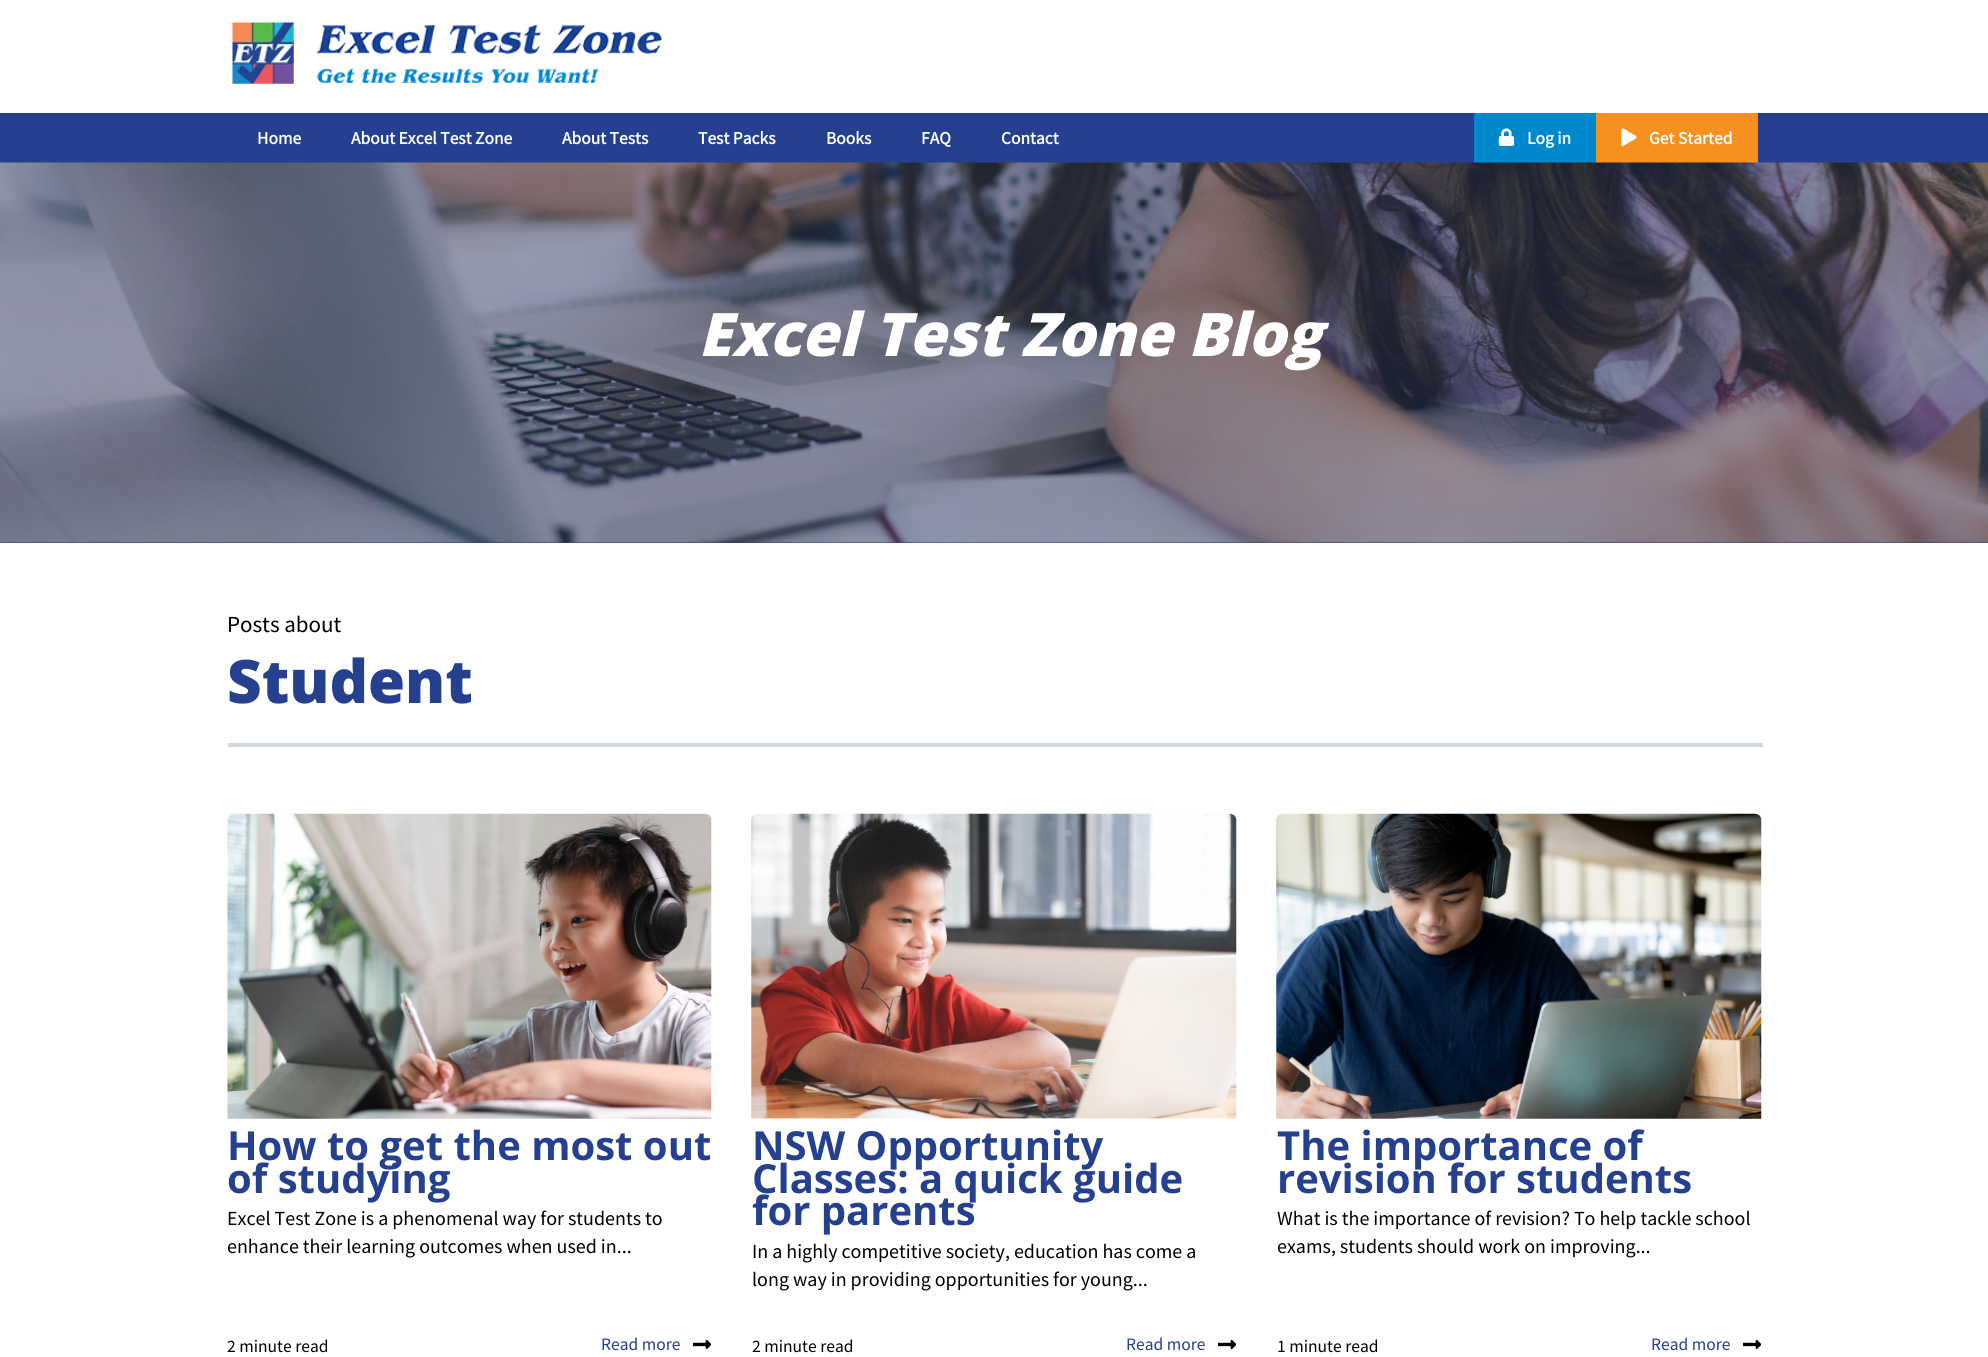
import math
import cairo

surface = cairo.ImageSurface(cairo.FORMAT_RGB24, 1988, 1357)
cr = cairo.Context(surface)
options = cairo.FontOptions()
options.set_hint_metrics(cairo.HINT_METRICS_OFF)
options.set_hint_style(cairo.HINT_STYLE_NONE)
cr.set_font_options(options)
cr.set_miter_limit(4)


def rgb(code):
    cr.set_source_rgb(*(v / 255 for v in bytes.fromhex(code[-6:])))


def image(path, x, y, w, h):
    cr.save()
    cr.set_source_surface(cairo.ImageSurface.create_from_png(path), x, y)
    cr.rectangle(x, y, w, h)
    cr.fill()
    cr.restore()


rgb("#ffffff")
cr.paint()
image("img/1.png", 232, 22, 62, 62)
image("img/2.png", 316, 25, 346, 58)
rgb("#24408e")
cr.rectangle(0, 113, 1988, 50)
cr.fill()
rgb("#0088cc")
cr.rectangle(1474, 113, 122, 50)
cr.fill()
image("img/3.png", 1498, 128, 17, 18)
rgb("#f6911f")
cr.rectangle(1596, 113, 162, 50)
cr.fill()
image("img/4.png", 1621, 128, 16, 18)
rgb("#24408e")
cr.rectangle(0, 542, 1988, 1)
cr.fill()
image("img/5.png", 0, 162, 1988, 381)
rgb("#d1d6dc")
cr.rectangle(228, 743, 1535, 4)
cr.fill()
image("img/6.png", 227, 813, 485, 306)
image("img/7.png", 693, 1339, 18, 10)
image("img/8.png", 751, 813, 486, 306)
image("img/7.png", 1218, 1339, 18, 10)
image("img/9.png", 1276, 813, 486, 306)
image("img/7.png", 1743, 1339, 18, 10)
cr.select_font_face("Source Sans Pro", cairo.FONT_SLANT_NORMAL, cairo.FONT_WEIGHT_BOLD)
cr.set_font_size(17.5)
rgb("#ffffff")
for x, y, s in [
    (257, 144, "Home"),
    (351, 144, "About Excel Test Zone"),
    (562, 144, "About Tests"),
    (698, 144, "Test Packs"),
    (826, 144, "Books"),
    (921, 144, "FAQ"),
    (1001, 144, "Contact"),
    (1527, 144, "Log in"),
    (1649, 144, "Get Started"),
]:
    cr.move_to(x, y)
    cr.show_text(s)
cr.select_font_face("Open Sans ExtraBold", cairo.FONT_SLANT_ITALIC)
cr.set_font_size(60)
cr.move_to(698, 356)
cr.show_text("Excel Test Zone Blog")
cr.select_font_face("Source Sans Pro")
cr.set_font_size(23)
rgb("#000000")
cr.move_to(227, 632)
cr.show_text("Posts about")
cr.select_font_face("Open Sans ExtraBold")
cr.set_font_size(60)
rgb("#24408e")
cr.move_to(227, 703)
cr.show_text("Student")
cr.select_font_face("Open Sans", cairo.FONT_SLANT_NORMAL, cairo.FONT_WEIGHT_BOLD)
cr.set_font_size(40)
cr.move_to(227, 1160)
cr.show_text("How to get the most out")
cr.move_to(227, 1193)
cr.show_text("of studying")
cr.select_font_face("Source Sans Pro")
cr.set_font_size(20)
rgb("#000000")
cr.move_to(227, 1225)
cr.show_text("Excel Test Zone is a phenomenal way for students to")
cr.move_to(227, 1253)
cr.show_text("enhance their learning outcomes when used in...")
cr.set_font_size(17.5)
cr.move_to(227, 1352)
cr.show_text("2 minute read")
rgb("#24408e")
cr.move_to(601, 1350)
cr.show_text("Read more")
cr.select_font_face("Open Sans", cairo.FONT_SLANT_NORMAL, cairo.FONT_WEIGHT_BOLD)
cr.set_font_size(40)
for x, y, s in [
    (752, 1160, "NSW Opportunity"),
    (752, 1193, "Classes: a quick guide"),
    (752, 1225, "for parents"),
]:
    cr.move_to(x, y)
    cr.show_text(s)
cr.select_font_face("Source Sans Pro")
cr.set_font_size(20)
rgb("#000000")
cr.move_to(752, 1258)
cr.show_text("In a highly competitive society, education has come a")
cr.move_to(752, 1286)
cr.show_text("long way in providing opportunities for young...")
cr.set_font_size(17.5)
cr.move_to(752, 1352)
cr.show_text("2 minute read")
rgb("#24408e")
cr.move_to(1126, 1350)
cr.show_text("Read more")
cr.select_font_face("Open Sans", cairo.FONT_SLANT_NORMAL, cairo.FONT_WEIGHT_BOLD)
cr.set_font_size(40)
cr.move_to(1277, 1160)
cr.show_text("The importance of")
cr.move_to(1277, 1193)
cr.show_text("revision for students")
cr.select_font_face("Source Sans Pro")
cr.set_font_size(20)
rgb("#000000")
cr.move_to(1277, 1225)
cr.show_text("What is the importance of revision? To help tackle school")
cr.move_to(1277, 1253)
cr.show_text("exams, students should work on improving...")
cr.set_font_size(17.5)
cr.move_to(1277, 1352)
cr.show_text("1 minute read")
rgb("#24408e")
cr.move_to(1651, 1350)
cr.show_text("Read more")
surface.write_to_png("page.png")
